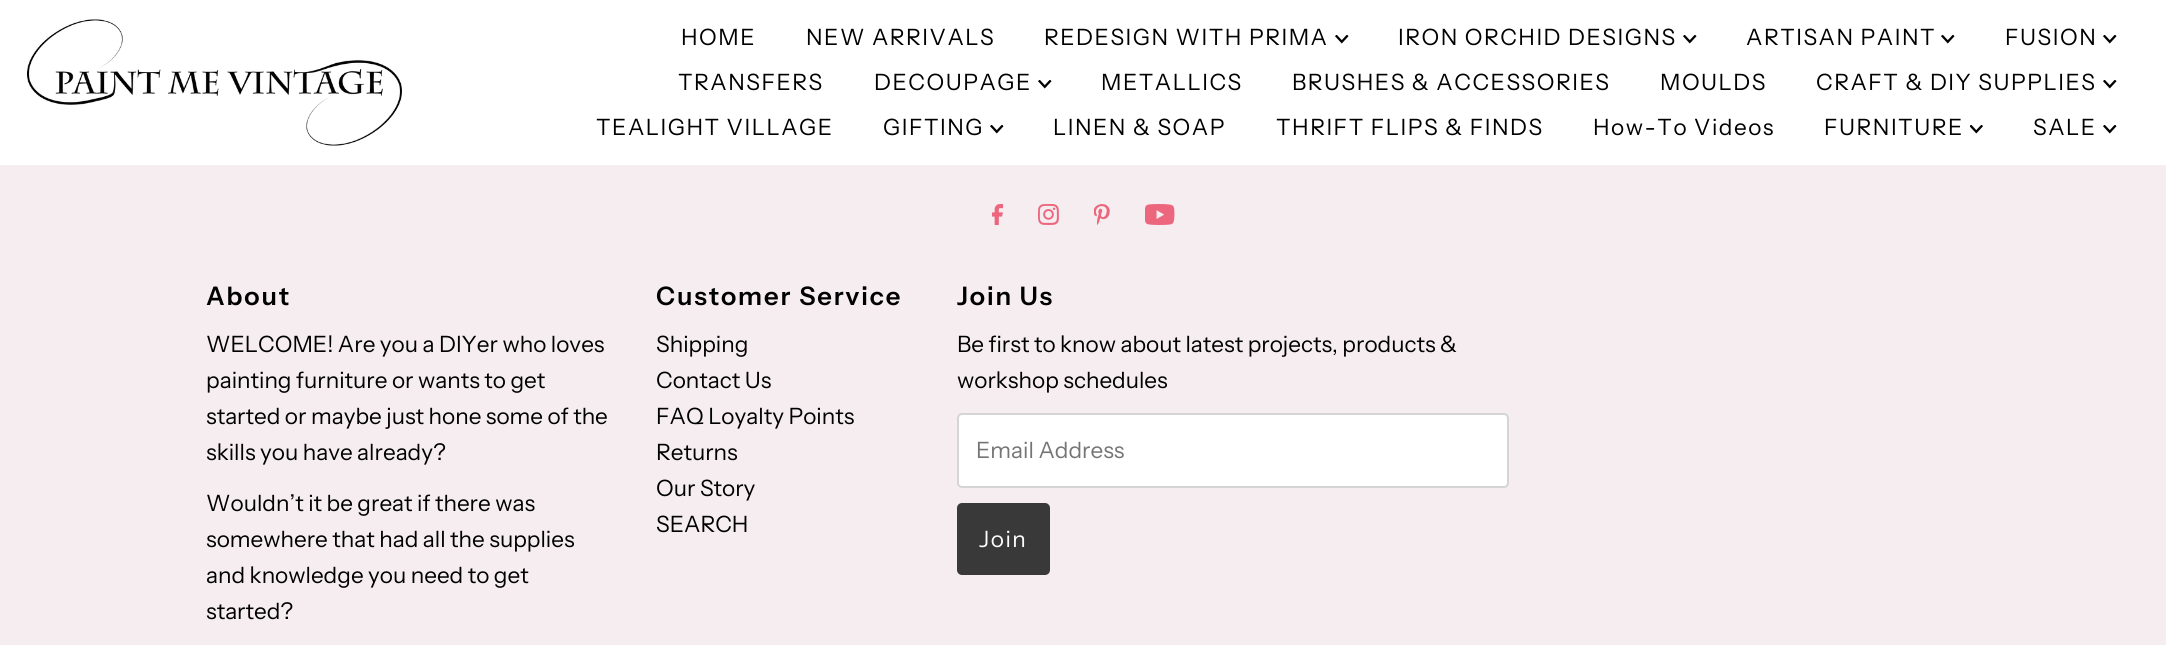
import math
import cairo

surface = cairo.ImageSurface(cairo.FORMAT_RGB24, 2166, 645)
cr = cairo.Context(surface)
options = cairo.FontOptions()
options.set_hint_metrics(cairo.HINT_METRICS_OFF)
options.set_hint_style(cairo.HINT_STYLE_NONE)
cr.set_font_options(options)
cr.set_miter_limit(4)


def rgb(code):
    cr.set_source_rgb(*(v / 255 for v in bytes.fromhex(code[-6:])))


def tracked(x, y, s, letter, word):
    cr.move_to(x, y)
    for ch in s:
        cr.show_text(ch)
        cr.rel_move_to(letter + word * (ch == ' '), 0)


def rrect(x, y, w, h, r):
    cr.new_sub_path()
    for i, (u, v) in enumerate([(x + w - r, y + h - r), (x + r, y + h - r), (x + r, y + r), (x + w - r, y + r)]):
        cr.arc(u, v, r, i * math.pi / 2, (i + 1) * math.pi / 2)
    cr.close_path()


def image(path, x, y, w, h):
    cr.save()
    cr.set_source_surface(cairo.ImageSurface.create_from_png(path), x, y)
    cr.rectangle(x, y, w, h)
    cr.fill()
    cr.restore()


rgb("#f5edef")
cr.paint()
rgb("#ffffff")
cr.rectangle(0, 0, 2166, 165)
cr.fill()
image("img/1.png", 27, 19, 375, 127)
image("img/2.png", 1335, 35, 14, 9)
image("img/2.png", 1683, 35, 14, 9)
image("img/2.png", 1941, 35, 14, 9)
image("img/2.png", 2103, 35, 14, 9)
image("img/2.png", 1038, 80, 14, 9)
image("img/2.png", 2103, 80, 14, 9)
image("img/2.png", 990, 125, 14, 9)
image("img/3.png", 1970, 125, 13, 9)
image("img/2.png", 2103, 125, 14, 9)
image("img/4.png", 992, 204, 12, 21)
image("img/5.png", 1038, 204, 21, 21)
image("img/6.png", 1094, 204, 16, 21)
image("img/7.png", 1145, 204, 30, 21)
rrect(958, 414, 550, 73, 4)
cr.fill_preserve()
rgb("#d5d5d5")
cr.stroke()
rgb("#393939")
rrect(957, 503, 93, 72, 5)
cr.fill()
cr.select_font_face("Instrument Sans")
cr.set_font_size(22.5)
rgb("#000000")
for x, y, s in [
    (681, 45, "HOME"),
    (806, 45, "NEW ARRIVALS"),
    (1044, 45, "REDESIGN WITH PRIMA"),
    (1398, 45, "IRON ORCHID DESIGNS"),
    (1746, 45, "ARTISAN PAINT"),
    (2005, 45, "FUSION"),
    (678, 90, "TRANSFERS"),
    (874, 90, "DECOUPAGE"),
    (1101, 90, "METALLICS"),
    (1292, 90, "BRUSHES & ACCESSORIES"),
    (1660, 90, "MOULDS"),
    (1816, 90, "CRAFT & DIY SUPPLIES"),
    (596, 135, "TEALIGHT VILLAGE"),
    (883, 135, "GIFTING"),
    (1053, 135, "LINEN & SOAP"),
    (1276, 135, "THRIFT FLIPS & FINDS"),
    (1593, 135, "How-To Videos"),
    (1824, 135, "FURNITURE"),
    (2033, 135, "SALE"),
]:
    tracked(x, y, s, 1.5, 0)
cr.select_font_face("Instrument Sans SemiBold")
cr.set_font_size(25.5)
tracked(206, 305, "About", 1.9, 0)
cr.select_font_face("Instrument Sans")
cr.set_font_size(22.5)
for x, y, s in [
    (206, 352, "WELCOME! Are you a DIYer who loves"),
    (206, 388, "painting furniture or wants to get"),
    (206, 424, "started or maybe just hone some of the"),
    (206, 460, "skills you have already?"),
    (206, 511, "Wouldn’t it be great if there was"),
    (206, 547, "somewhere that had all the supplies"),
    (206, 583, "and knowledge you need to get"),
    (206, 619, "started?"),
]:
    cr.move_to(x, y)
    cr.show_text(s)
cr.select_font_face("Instrument Sans SemiBold")
cr.set_font_size(25.5)
tracked(656, 305, "Customer Service", 1.9, 0)
cr.select_font_face("Instrument Sans")
cr.set_font_size(22.5)
for x, y, s in [
    (656, 352, "Shipping"),
    (656, 388, "Contact Us"),
    (656, 424, "FAQ Loyalty Points"),
    (656, 460, "Returns"),
    (656, 496, "Our Story"),
    (656, 532, "SEARCH"),
]:
    cr.move_to(x, y)
    cr.show_text(s)
cr.select_font_face("Instrument Sans SemiBold")
cr.set_font_size(25.5)
tracked(957, 305, "Join Us", 1.9, 0)
cr.select_font_face("Instrument Sans")
cr.set_font_size(22.5)
cr.move_to(957, 352)
cr.show_text("Be first to know about latest projects, products &")
cr.move_to(957, 388)
cr.show_text("workshop schedules")
rgb("#757575")
cr.move_to(976, 458)
cr.show_text("Email Address")
rgb("#ffffff")
tracked(979, 547, "Join", 1.5, 0)
surface.write_to_png("page.png")
